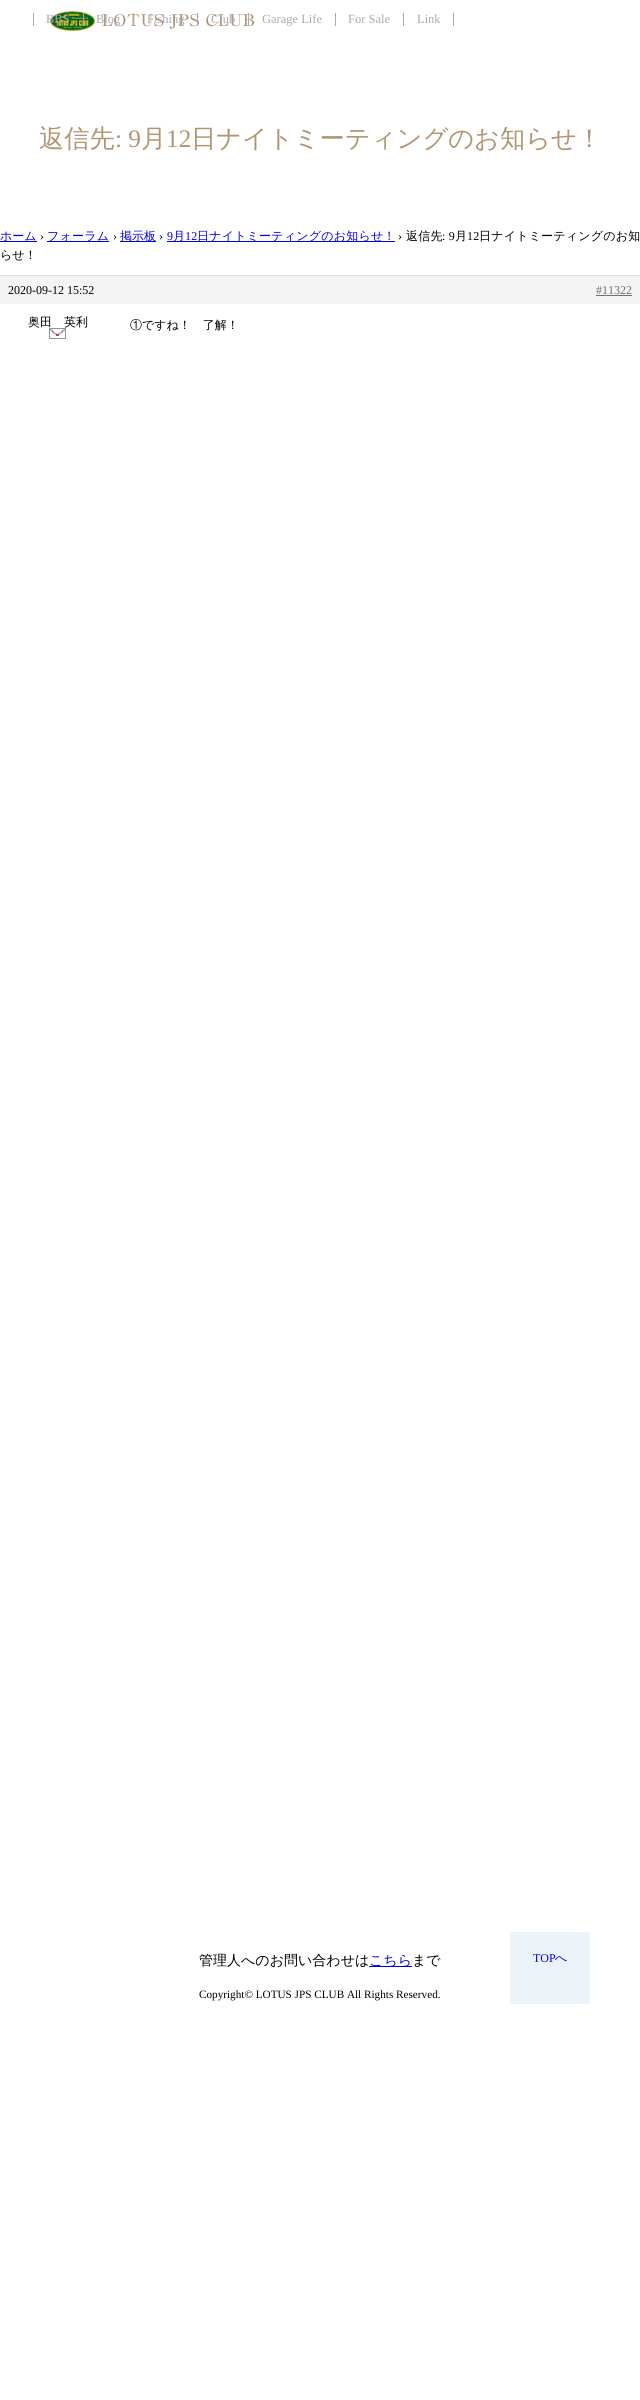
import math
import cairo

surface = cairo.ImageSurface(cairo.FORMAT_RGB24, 640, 2400)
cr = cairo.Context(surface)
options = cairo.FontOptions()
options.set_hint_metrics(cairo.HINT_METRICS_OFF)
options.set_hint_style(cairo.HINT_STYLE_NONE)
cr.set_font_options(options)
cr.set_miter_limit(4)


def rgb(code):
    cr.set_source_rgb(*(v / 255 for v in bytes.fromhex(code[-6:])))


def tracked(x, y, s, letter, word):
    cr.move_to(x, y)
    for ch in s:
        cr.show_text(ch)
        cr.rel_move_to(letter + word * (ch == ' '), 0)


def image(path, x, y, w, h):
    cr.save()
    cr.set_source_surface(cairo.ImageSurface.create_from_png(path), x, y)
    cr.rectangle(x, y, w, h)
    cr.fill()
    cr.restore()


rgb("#ffffff")
cr.paint()
image("img/1.png", 50, 11, 205, 20)
for x, y, w, h, color in [
    (33, 13, 1, 13, "#aaaaaa"),
    (83, 13, 1, 13, "#aaaaaa"),
    (133, 13, 1, 13, "#aaaaaa"),
    (197, 13, 1, 13, "#aaaaaa"),
    (248, 13, 1, 13, "#aaaaaa"),
    (335, 13, 1, 13, "#aaaaaa"),
    (453, 13, 1, 13, "#aaaaaa"),
    (403, 13, 1, 13, "#aaaaaa"),
    (0, 241, 37, 1, "#0000ee"),
    (47, 241, 62, 1, "#0000ee"),
    (120, 241, 36, 1, "#0000ee"),
    (167, 241, 228, 1, "#0000ee"),
    (0, 276, 640, 28, "#f4f4f4"),
    (0, 275, 640, 1, "#dddddd"),
    (596, 295, 36, 1, "#707070"),
]:
    rgb(color)
    cr.rectangle(x, y, w, h)
    cr.fill()
image("img/2.png", 49, 328, 17, 11)
rgb("#0000ee")
cr.rectangle(369, 1966, 43, 1)
cr.fill()
rgb("#ebf3f8")
cr.rectangle(510, 1932, 80, 72)
cr.fill()
cr.select_font_face("Liberation Serif")
cr.set_font_size(12.5)
rgb("#aaaaaa")
for x, y, s in [
    (46, 23, "BBS"),
    (96, 23, "Blog"),
    (147, 23, "Fishing"),
    (211, 23, "Club"),
    (262, 23, "Garage Life"),
    (348, 23, "For Sale"),
    (417, 23, "Link"),
]:
    cr.move_to(x, y)
    cr.show_text(s)
cr.select_font_face("WenQuanYi Zen Hei Medium")
cr.set_font_size(25.25)
rgb("#b29674")
cr.move_to(39, 147)
cr.show_text("返信先")
cr.select_font_face("Liberation Serif")
cr.move_to(115, 147)
cr.show_text(": 9")
cr.select_font_face("WenQuanYi Zen Hei Medium")
cr.move_to(141, 147)
cr.show_text("月")
cr.select_font_face("Liberation Serif")
cr.move_to(166, 147)
cr.show_text("12")
cr.select_font_face("WenQuanYi Zen Hei Medium")
cr.move_to(191, 147)
cr.show_text("日ナイトミーティングのお知らせ！")
cr.set_font_size(12)
rgb("#0000ee")
cr.move_to(0, 240)
cr.show_text("ホーム")
cr.select_font_face("Liberation Serif")
rgb("#000000")
cr.move_to(40, 240)
cr.show_text("›")
cr.select_font_face("WenQuanYi Zen Hei Medium")
rgb("#0000ee")
tracked(47, 240, "フォーラム", 0.25, 0)
cr.select_font_face("Liberation Serif")
rgb("#000000")
cr.move_to(113, 240)
cr.show_text("›")
cr.select_font_face("WenQuanYi Zen Hei Medium")
rgb("#0000ee")
cr.move_to(120, 240)
cr.show_text("掲示板")
cr.select_font_face("Liberation Serif")
rgb("#000000")
cr.move_to(159, 240)
cr.show_text("›")
rgb("#0000ee")
tracked(167, 240, "9", 0.2, 0)
cr.select_font_face("WenQuanYi Zen Hei Medium")
tracked(173, 240, "月", 0.2, 0)
cr.select_font_face("Liberation Serif")
tracked(185, 240, "12", 0.2, 0)
cr.select_font_face("WenQuanYi Zen Hei Medium")
tracked(197, 240, "日ナイトミーティングのお知らせ！", 0.2, 0)
cr.select_font_face("Liberation Serif")
rgb("#000000")
cr.move_to(398, 240)
cr.show_text("›")
cr.select_font_face("WenQuanYi Zen Hei Medium")
tracked(406, 240, "返信先", 0.2, 0)
cr.select_font_face("Liberation Serif")
tracked(442, 240, ": 9", 0.2, 0)
cr.select_font_face("WenQuanYi Zen Hei Medium")
tracked(455, 240, "月", 0.2, 0)
cr.select_font_face("Liberation Serif")
tracked(467, 240, "12", 0.2, 0)
cr.select_font_face("WenQuanYi Zen Hei Medium")
tracked(479, 240, "日ナイトミーティングのお知", 0.2, 0)
cr.move_to(0, 259)
cr.show_text("らせ！")
cr.select_font_face("Liberation Serif")
cr.move_to(8, 294)
cr.show_text("2020-09-12 15:52")
rgb("#707070")
cr.move_to(596, 294)
cr.show_text("#11322")
cr.select_font_face("WenQuanYi Zen Hei Medium")
rgb("#000000")
cr.move_to(28, 326)
cr.show_text("奥田　英利")
cr.move_to(130, 329)
cr.show_text("①ですね！　了解！")
cr.set_font_size(14)
cr.move_to(199, 1965)
cr.show_text("管理人へのお問い合わせは")
rgb("#0000ee")
cr.move_to(369, 1965)
cr.show_text("こちら")
rgb("#000000")
cr.move_to(412, 1965)
cr.show_text("まで")
cr.select_font_face("Liberation Serif")
cr.set_font_size(12)
rgb("#0000ee")
cr.move_to(533, 1962)
cr.show_text("TOP")
cr.select_font_face("WenQuanYi Zen Hei Medium")
cr.move_to(555, 1962)
cr.show_text("へ")
cr.select_font_face("Liberation Serif")
cr.set_font_size(11.2)
rgb("#000000")
cr.move_to(199, 1998)
cr.show_text("Copyright© LOTUS JPS CLUB All Rights Reserved.")
surface.write_to_png("page.png")
